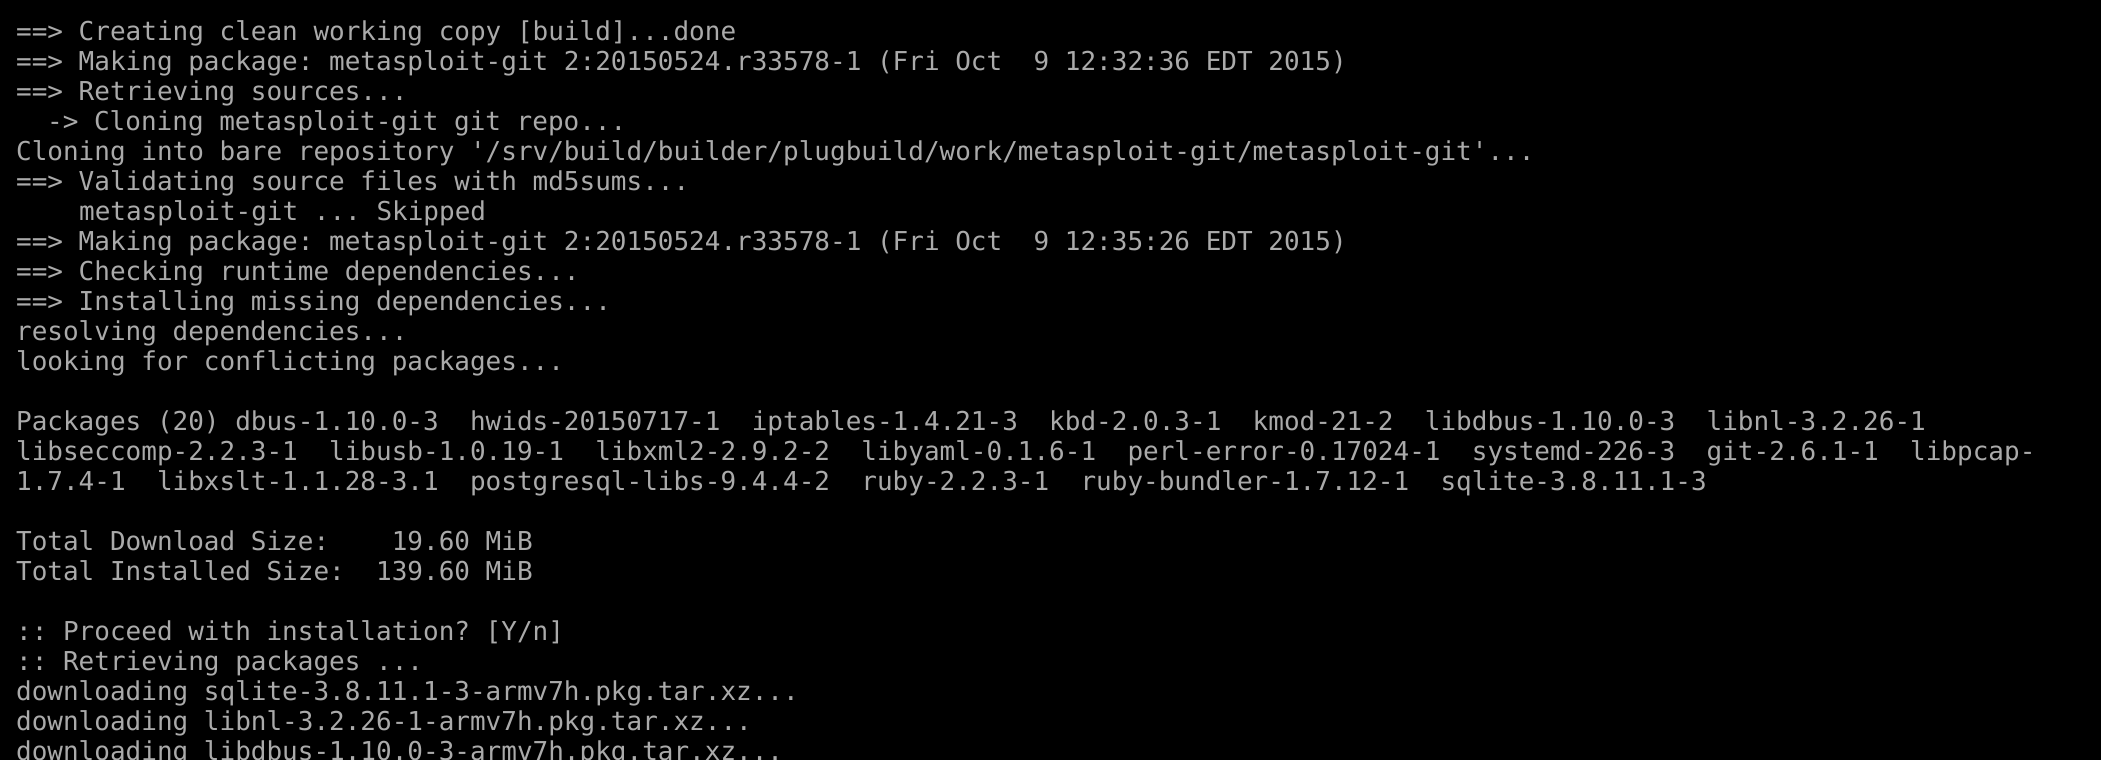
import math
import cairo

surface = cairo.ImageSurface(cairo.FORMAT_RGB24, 2101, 760)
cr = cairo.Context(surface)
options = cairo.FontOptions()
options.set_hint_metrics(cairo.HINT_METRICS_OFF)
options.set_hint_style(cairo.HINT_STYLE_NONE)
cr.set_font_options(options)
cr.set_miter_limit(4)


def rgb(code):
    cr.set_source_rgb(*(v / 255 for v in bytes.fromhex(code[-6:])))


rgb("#000000")
cr.paint()
cr.select_font_face("DejaVu Sans Mono")
cr.set_font_size(26)
rgb("#aaaaaa")
for x, y, s in [
    (16, 40, "==> Creating clean working copy [build]...done"),
    (16, 70, "==> Making package: metasploit-git 2:20150524.r33578-1 (Fri Oct  9 12:32:36 EDT 2015)"),
    (16, 100, "==> Retrieving sources..."),
    (47, 130, "-> Cloning metasploit-git git repo..."),
    (16, 160, "Cloning into bare repository '/srv/build/builder/plugbuild/work/metasploit-git/metasploit-git'..."),
    (16, 190, "==> Validating source files with md5sums..."),
    (79, 220, "metasploit-git ... Skipped"),
    (16, 250, "==> Making package: metasploit-git 2:20150524.r33578-1 (Fri Oct  9 12:35:26 EDT 2015)"),
    (16, 280, "==> Checking runtime dependencies..."),
    (16, 310, "==> Installing missing dependencies..."),
    (16, 340, "resolving dependencies..."),
    (16, 370, "looking for conflicting packages..."),
    (16, 430, "Packages (20) dbus-1.10.0-3  hwids-20150717-1  iptables-1.4.21-3  kbd-2.0.3-1  kmod-21-2  libdbus-1.10.0-3  libnl-3.2.26-1"),
    (16, 460, "libseccomp-2.2.3-1  libusb-1.0.19-1  libxml2-2.9.2-2  libyaml-0.1.6-1  perl-error-0.17024-1  systemd-226-3  git-2.6.1-1  libpcap-"),
    (16, 490, "1.7.4-1  libxslt-1.1.28-3.1  postgresql-libs-9.4.4-2  ruby-2.2.3-1  ruby-bundler-1.7.12-1  sqlite-3.8.11.1-3"),
    (16, 550, "Total Download Size:    19.60 MiB"),
    (16, 580, "Total Installed Size:  139.60 MiB"),
    (16, 640, ":: Proceed with installation? [Y/n]"),
    (16, 670, ":: Retrieving packages ..."),
    (16, 700, "downloading sqlite-3.8.11.1-3-armv7h.pkg.tar.xz..."),
    (16, 730, "downloading libnl-3.2.26-1-armv7h.pkg.tar.xz..."),
    (16, 760, "downloading libdbus-1.10.0-3-armv7h.pkg.tar.xz..."),
]:
    cr.move_to(x, y)
    cr.show_text(s)
surface.write_to_png("page.png")
